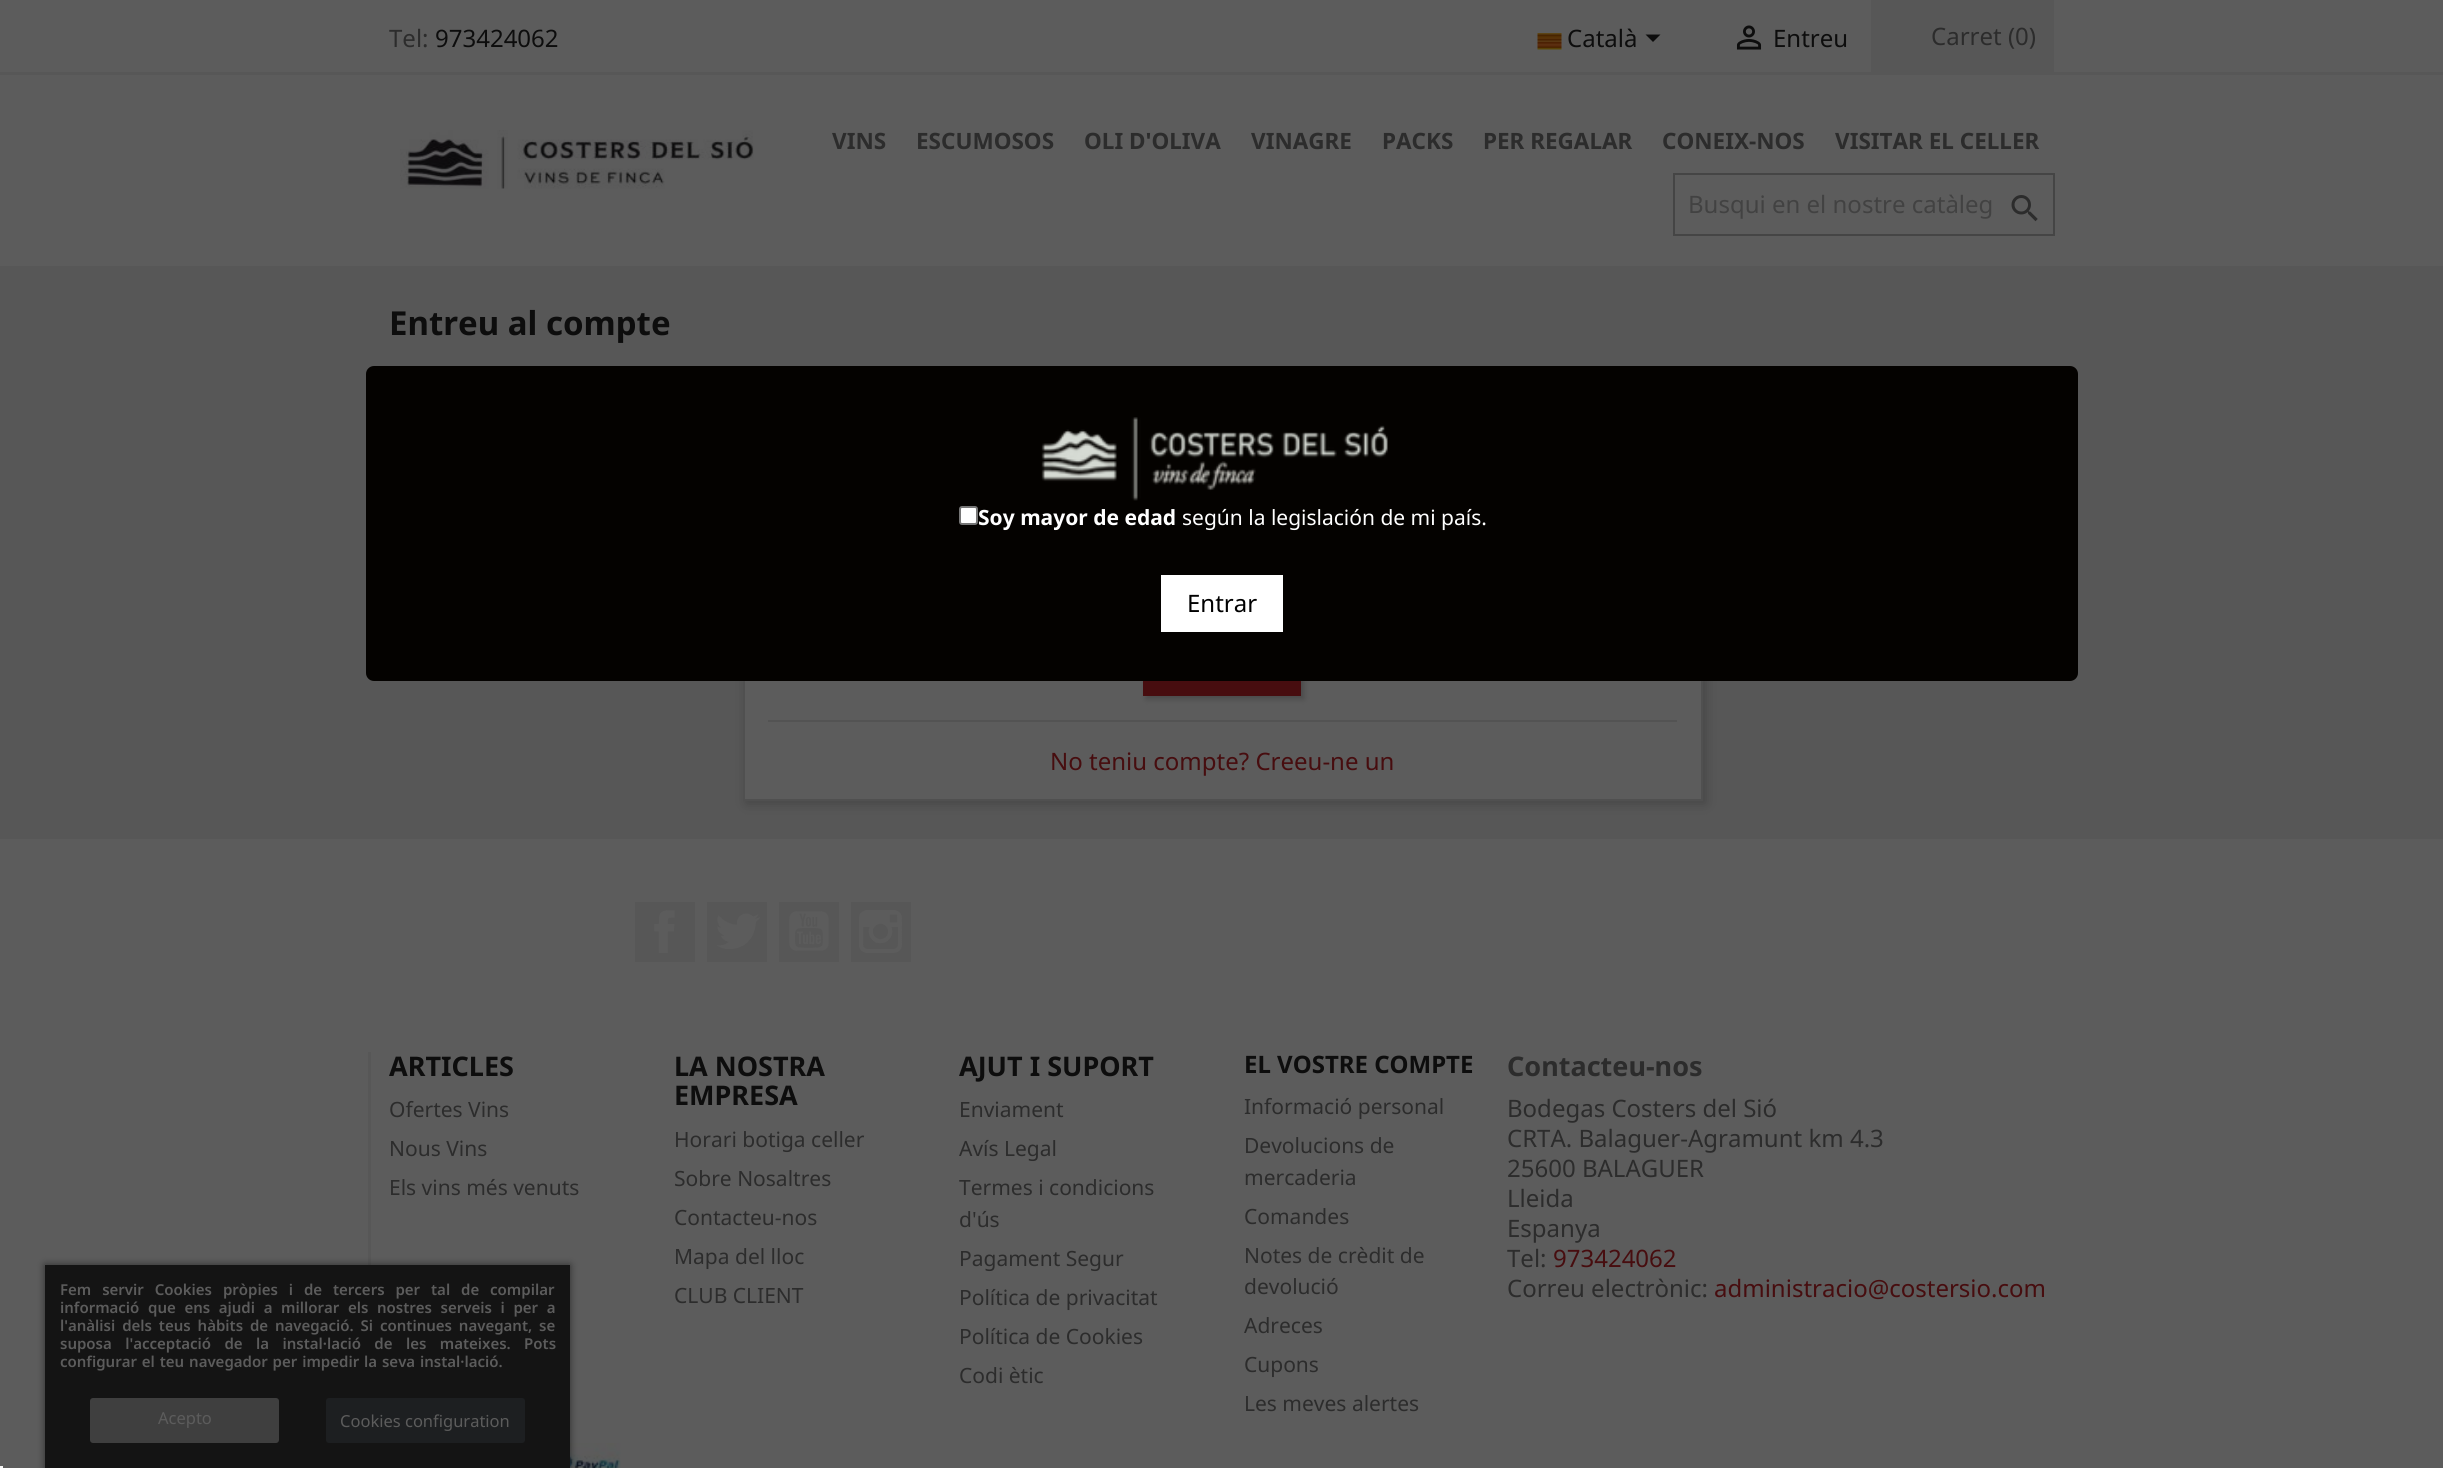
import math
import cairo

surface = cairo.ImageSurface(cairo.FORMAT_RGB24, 2443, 1468)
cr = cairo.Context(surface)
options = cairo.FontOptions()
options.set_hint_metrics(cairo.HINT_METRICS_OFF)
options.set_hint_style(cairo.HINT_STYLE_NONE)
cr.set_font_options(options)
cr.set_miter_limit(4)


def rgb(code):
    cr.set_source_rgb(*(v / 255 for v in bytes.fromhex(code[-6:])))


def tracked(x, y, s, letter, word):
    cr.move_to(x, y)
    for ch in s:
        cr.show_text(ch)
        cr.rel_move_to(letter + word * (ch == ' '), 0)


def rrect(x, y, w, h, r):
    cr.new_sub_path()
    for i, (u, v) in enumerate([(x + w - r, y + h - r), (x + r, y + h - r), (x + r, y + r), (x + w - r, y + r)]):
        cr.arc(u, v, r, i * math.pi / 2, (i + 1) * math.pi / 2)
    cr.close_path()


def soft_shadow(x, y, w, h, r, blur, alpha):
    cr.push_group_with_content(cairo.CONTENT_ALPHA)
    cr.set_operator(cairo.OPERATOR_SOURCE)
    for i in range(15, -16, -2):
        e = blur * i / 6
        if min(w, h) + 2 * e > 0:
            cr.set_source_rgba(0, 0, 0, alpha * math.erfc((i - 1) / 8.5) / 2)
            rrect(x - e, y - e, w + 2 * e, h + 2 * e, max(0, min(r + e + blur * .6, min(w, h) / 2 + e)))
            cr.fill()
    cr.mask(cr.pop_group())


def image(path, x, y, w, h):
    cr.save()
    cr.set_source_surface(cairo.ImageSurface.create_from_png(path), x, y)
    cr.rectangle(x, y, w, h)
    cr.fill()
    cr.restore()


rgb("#5c5c5c")
cr.paint()
rgb("#575757")
cr.rectangle(0, 72, 2443, 3)
cr.fill()
image("img/1.png", 1537, 33, 25, 17)
rgb("#0d0d0d")
cr.new_path()
cr.move_to(1645.5, 34.5)
cr.line_to(1660.5, 34.5)
cr.line_to(1653, 42)
cr.close_path()
cr.fill()
image("img/2.png", 1736, 25, 26, 25)
rgb("#575757")
cr.rectangle(1871, 0, 183, 72)
cr.fill()
image("img/3.png", 400, 130, 354, 59)
cr.rectangle(1674, 174, 380, 61)
rgb("#454545")
cr.stroke()
image("img/4.png", 2011, 195, 27, 27)
rgb("#575757")
cr.rectangle(0, 266, 2443, 573)
cr.fill()
rgb("#000000")
soft_shadow(746, 380, 960, 424, 0, 6, 0.2)
rgb("#5c5c5c")
cr.rectangle(745, 681, 956, 118)
cr.fill()
cr.rectangle(744, 378, 958, 422)
rgb("#505050")
cr.stroke()
rgb("#000000")
soft_shadow(1146, 642, 158, 57, 0, 3, 0.2)
for x, y, w, h, color in [
    (1143, 681, 158, 15, "#470d0f"),
    (768, 720, 909, 2, "#535353"),
    (635, 902, 60, 60, "#575757"),
]:
    rgb(color)
    cr.rectangle(x, y, w, h)
    cr.fill()
image("img/5.png", 654, 910, 21, 43)
cr.rectangle(707, 902, 60, 60)
cr.fill()
image("img/6.png", 717, 913, 43, 36)
cr.rectangle(779, 902, 60, 60)
cr.fill()
image("img/7.png", 789, 911, 40, 40)
cr.rectangle(851, 902, 60, 60)
cr.fill()
image("img/8.png", 859, 910, 43, 43)
cr.rectangle(368, 1052, 3, 213)
cr.fill()
image("img/9.png", 570, 1443, 51, 25)
rgb("#040200")
rrect(366, 366, 1712, 315, 8)
cr.fill()
image("img/10.png", 1041, 417, 347, 84)
rgb("#ffffff")
rrect(960, 507, 17, 17, 2)
cr.fill_preserve()
rgb("#767676")
cr.stroke()
rgb("#ffffff")
cr.rectangle(1161, 575, 122, 57)
cr.fill()
rgb("#000000")
soft_shadow(45, 1265, 525, 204, 0, 4, 0.5)
rgb("#141414")
cr.rectangle(45, 1265, 525, 203)
cr.fill()
rgb("#3f3f3f")
rrect(90, 1398, 189, 45, 3)
cr.fill()
rgb("#1d1f21")
rrect(326, 1398, 199, 45, 3)
cr.fill()
rgb("#f5f5f5")
cr.rectangle(0, 1466, 3, 2)
cr.fill()
cr.select_font_face("Noto Sans")
cr.set_font_size(24)
rgb("#2c2c2c")
cr.move_to(389, 47)
cr.show_text("Tel:")
rgb("#0d0d0d")
for x, y, s in [
    (435, 47, "973424062"),
    (1567, 47, "Català"),
    (1773, 47, "Entreu"),
]:
    cr.move_to(x, y)
    cr.show_text(s)
rgb("#2c2c2c")
cr.move_to(1931, 45)
cr.show_text("Carret (0)")
cr.select_font_face("Noto Sans", cairo.FONT_SLANT_NORMAL, cairo.FONT_WEIGHT_BOLD)
cr.set_font_size(22.5)
for x, y, s in [
    (832, 149, "VINS"),
    (916, 149, "ESCUMOSOS"),
    (1084, 149, "OLI D'OLIVA"),
    (1251, 149, "VINAGRE"),
    (1382, 149, "PACKS"),
    (1483, 149, "PER REGALAR"),
    (1662, 149, "CONEIX-NOS"),
    (1835, 149, "VISITAR EL CELLER"),
]:
    cr.move_to(x, y)
    cr.show_text(s)
cr.select_font_face("Noto Sans")
cr.set_font_size(24)
rgb("#424242")
cr.move_to(1688, 213)
cr.show_text("Busqui en el nostre catàleg")
cr.select_font_face("Noto Sans", cairo.FONT_SLANT_NORMAL, cairo.FONT_WEIGHT_BOLD)
cr.set_font_size(33)
rgb("#0d0d0d")
cr.move_to(389, 335)
cr.show_text("Entreu al compte")
cr.select_font_face("Noto Sans")
cr.set_font_size(24)
rgb("#470d0f")
cr.move_to(1050, 770)
cr.show_text("No teniu compte? Creeu-ne un")
cr.select_font_face("Noto Sans", cairo.FONT_SLANT_NORMAL, cairo.FONT_WEIGHT_BOLD)
cr.set_font_size(27)
rgb("#0d0d0d")
cr.move_to(389, 1076)
cr.show_text("ARTICLES")
cr.select_font_face("Noto Sans")
cr.set_font_size(21)
rgb("#2c2c2c")
for x, y, s in [
    (389, 1117, "Ofertes Vins"),
    (389, 1156, "Nous Vins"),
    (389, 1195, "Els vins més venuts"),
]:
    cr.move_to(x, y)
    cr.show_text(s)
cr.select_font_face("Noto Sans", cairo.FONT_SLANT_NORMAL, cairo.FONT_WEIGHT_BOLD)
cr.set_font_size(27)
rgb("#0d0d0d")
cr.move_to(674, 1076)
cr.show_text("LA NOSTRA")
cr.move_to(674, 1105)
cr.show_text("EMPRESA")
cr.select_font_face("Noto Sans")
cr.set_font_size(21)
rgb("#2c2c2c")
for x, y, s in [
    (674, 1147, "Horari botiga celler"),
    (674, 1186, "Sobre Nosaltres"),
    (674, 1225, "Contacteu-nos"),
    (674, 1264, "Mapa del lloc"),
    (674, 1303, "CLUB CLIENT"),
]:
    cr.move_to(x, y)
    cr.show_text(s)
cr.select_font_face("Noto Sans", cairo.FONT_SLANT_NORMAL, cairo.FONT_WEIGHT_BOLD)
cr.set_font_size(27)
rgb("#0d0d0d")
cr.move_to(959, 1076)
cr.show_text("AJUT I SUPORT")
cr.select_font_face("Noto Sans")
cr.set_font_size(21)
rgb("#2c2c2c")
for x, y, s in [
    (959, 1117, "Enviament"),
    (959, 1156, "Avís Legal"),
    (959, 1195, "Termes i condicions"),
    (959, 1227, "d'ús"),
    (959, 1266, "Pagament Segur"),
    (959, 1305, "Política de privacitat"),
    (959, 1344, "Política de Cookies"),
    (959, 1383, "Codi ètic"),
]:
    cr.move_to(x, y)
    cr.show_text(s)
cr.select_font_face("Noto Sans", cairo.FONT_SLANT_NORMAL, cairo.FONT_WEIGHT_BOLD)
cr.set_font_size(24)
rgb("#0d0d0d")
cr.move_to(1244, 1073)
cr.show_text("EL VOSTRE COMPTE")
cr.select_font_face("Noto Sans")
cr.set_font_size(21)
rgb("#2c2c2c")
for x, y, s in [
    (1244, 1114, "Informació personal"),
    (1244, 1153, "Devolucions de"),
    (1244, 1185, "mercaderia"),
    (1244, 1224, "Comandes"),
    (1244, 1263, "Notes de crèdit de"),
    (1244, 1294, "devolució"),
    (1244, 1333, "Adreces"),
    (1244, 1372, "Cupons"),
    (1244, 1411, "Les meves alertes"),
]:
    cr.move_to(x, y)
    cr.show_text(s)
cr.select_font_face("Noto Sans", cairo.FONT_SLANT_NORMAL, cairo.FONT_WEIGHT_BOLD)
cr.set_font_size(27)
cr.move_to(1507, 1076)
cr.show_text("Contacteu-nos")
cr.select_font_face("Noto Sans")
cr.set_font_size(24)
for x, y, s in [
    (1507, 1117, "Bodegas Costers del Sió"),
    (1507, 1147, "CRTA. Balaguer-Agramunt km 4.3"),
    (1507, 1177, "25600 BALAGUER"),
    (1507, 1207, "Lleida"),
    (1507, 1237, "Espanya"),
    (1507, 1267, "Tel:"),
]:
    cr.move_to(x, y)
    cr.show_text(s)
rgb("#470d0f")
cr.move_to(1553, 1267)
cr.show_text("973424062")
rgb("#2c2c2c")
cr.move_to(1507, 1297)
cr.show_text("Correu electrònic:")
rgb("#470d0f")
cr.move_to(1714, 1297)
cr.show_text("administracio@costersio.com")
cr.select_font_face("Noto Sans", cairo.FONT_SLANT_NORMAL, cairo.FONT_WEIGHT_BOLD)
cr.set_font_size(21)
rgb("#ffffff")
cr.move_to(978, 525)
cr.show_text("Soy mayor de edad")
cr.select_font_face("Noto Sans")
cr.move_to(1182, 525)
cr.show_text("según la legislación de mi país.")
cr.set_font_size(24)
rgb("#000000")
cr.move_to(1187, 612)
cr.show_text("Entrar")
cr.select_font_face("Noto Sans SemiBold")
cr.set_font_size(15)
rgb("#5c5c5c")
tracked(60, 1295, "Fem servir Cookies pròpies i de tercers per tal de compilar", 0, 7)
tracked(60, 1313, "informació que ens ajudi a millorar els nostres serveis i per a", 0, 4.75)
tracked(60, 1331, "l'anàlisi dels teus hàbits de navegació. Si continues navegant, se", 0, 3)
tracked(60, 1349, "suposa l'acceptació de la instal·lació de les mateixes. Pots", 0, 9.5)
tracked(60, 1367, "configurar el teu navegador per impedir la seva instal·lació.", 0, 1)
cr.select_font_face("Noto Sans")
cr.set_font_size(16.5)
cr.move_to(158, 1424)
cr.show_text("Acepto")
cr.move_to(340, 1427)
cr.show_text("Cookies configuration")
surface.write_to_png("page.png")
